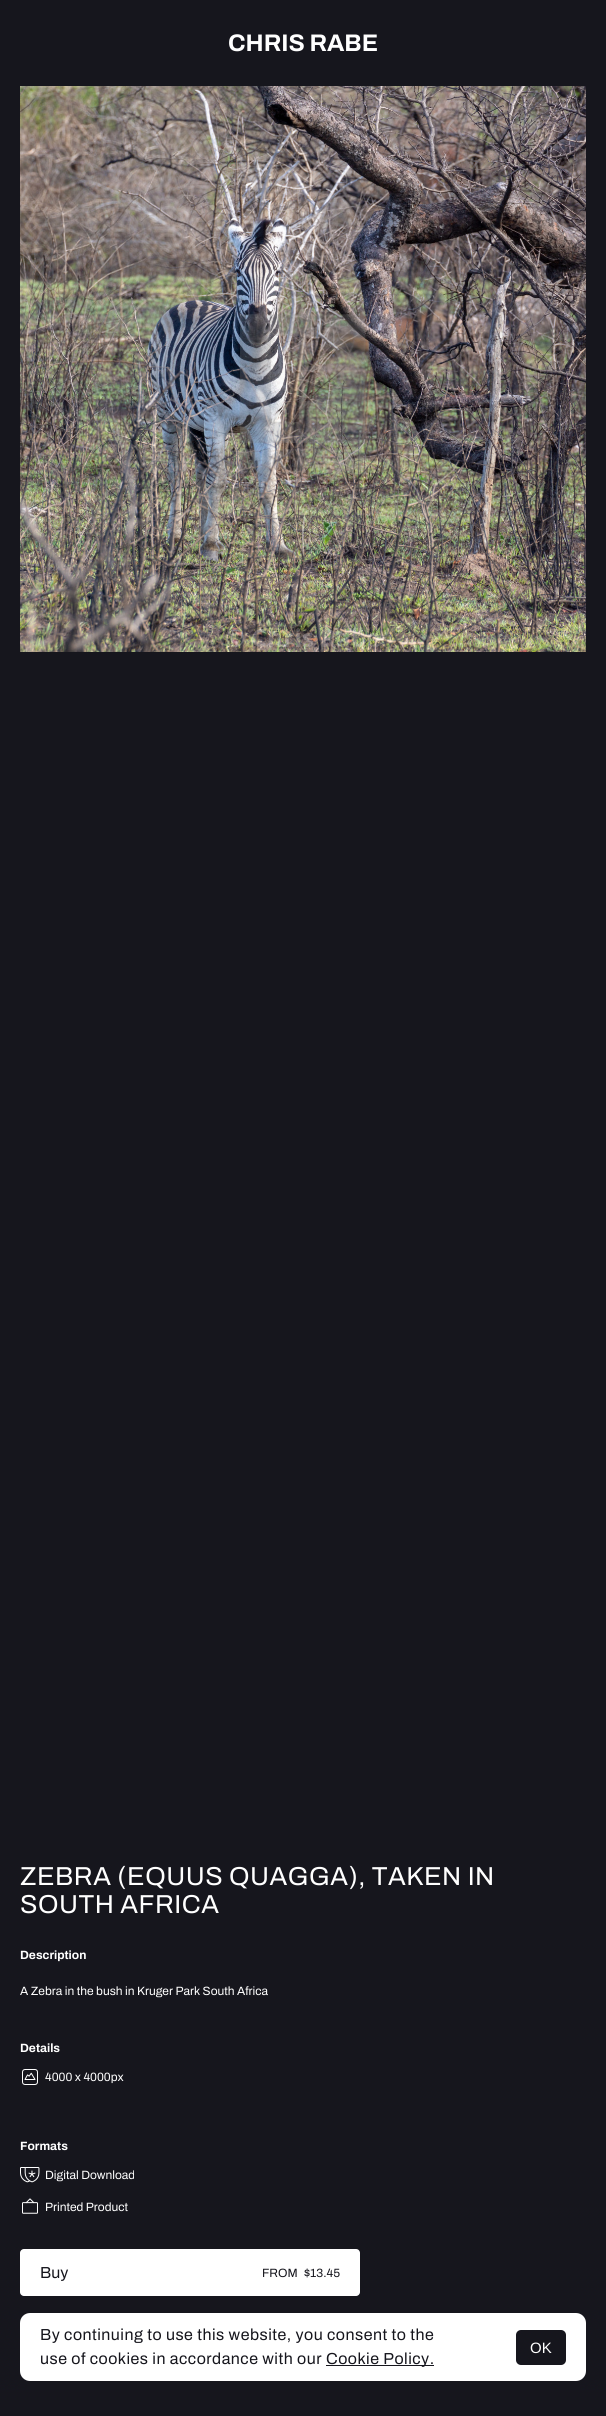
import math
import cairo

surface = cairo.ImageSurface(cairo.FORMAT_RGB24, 606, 2416)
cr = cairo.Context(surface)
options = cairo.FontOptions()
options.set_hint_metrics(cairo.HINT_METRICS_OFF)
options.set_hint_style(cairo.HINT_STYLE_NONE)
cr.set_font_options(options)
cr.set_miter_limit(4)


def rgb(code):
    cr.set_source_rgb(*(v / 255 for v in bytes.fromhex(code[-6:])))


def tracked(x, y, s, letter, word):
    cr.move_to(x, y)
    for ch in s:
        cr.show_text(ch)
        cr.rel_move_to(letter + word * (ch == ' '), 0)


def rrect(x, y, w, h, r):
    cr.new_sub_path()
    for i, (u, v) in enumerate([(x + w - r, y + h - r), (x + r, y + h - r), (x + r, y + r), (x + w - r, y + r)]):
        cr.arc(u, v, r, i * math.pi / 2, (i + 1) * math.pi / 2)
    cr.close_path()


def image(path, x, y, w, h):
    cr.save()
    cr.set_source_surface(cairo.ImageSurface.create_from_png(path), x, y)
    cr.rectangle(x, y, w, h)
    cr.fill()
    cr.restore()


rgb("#16161d")
cr.paint()
image("img/1.png", 20, 86, 566, 566)
image("img/2.png", 22, 2069, 16, 16)
image("img/3.png", 20, 2167, 20, 16)
image("img/4.png", 22, 2198, 16, 16)
rgb("#ffffff")
rrect(20, 2249, 340, 47, 4)
cr.fill()
rrect(20, 2313, 566, 68, 10)
cr.fill()
rgb("#16161d")
cr.rectangle(326, 2365, 108, 1)
cr.fill()
rrect(516, 2330, 50, 35, 5)
cr.fill()
cr.select_font_face("Archivo", cairo.FONT_SLANT_NORMAL, cairo.FONT_WEIGHT_BOLD)
cr.set_font_size(24)
rgb("#ffffff")
cr.move_to(228, 51)
cr.show_text("CHRIS RABE")
cr.select_font_face("Archivo")
cr.set_font_size(26)
tracked(20, 1885, "ZEBRA (EQUUS QUAGGA), TAKEN IN", 0.5, 0)
tracked(20, 1913, "SOUTH AFRICA", 0.5, 0)
cr.select_font_face("Archivo", cairo.FONT_SLANT_NORMAL, cairo.FONT_WEIGHT_BOLD)
cr.set_font_size(12)
cr.move_to(20, 1959)
cr.show_text("Description")
cr.select_font_face("Archivo")
cr.move_to(20, 1995)
cr.show_text("A Zebra in the bush in Kruger Park South Africa")
cr.select_font_face("Archivo", cairo.FONT_SLANT_NORMAL, cairo.FONT_WEIGHT_BOLD)
cr.move_to(20, 2052)
cr.show_text("Details")
cr.select_font_face("Archivo")
cr.move_to(45, 2081)
cr.show_text("4000 x 4000px")
cr.select_font_face("Archivo", cairo.FONT_SLANT_NORMAL, cairo.FONT_WEIGHT_BOLD)
cr.move_to(20, 2150)
cr.show_text("Formats")
cr.select_font_face("Archivo")
cr.move_to(45, 2179)
cr.show_text("Digital Download")
cr.move_to(45, 2211)
cr.show_text("Printed Product")
cr.set_font_size(16)
rgb("#16161d")
cr.move_to(40, 2278)
cr.show_text("Buy")
cr.set_font_size(12)
cr.move_to(262, 2277)
cr.show_text("FROM")
cr.move_to(304, 2277)
cr.show_text("$13.45")
cr.set_font_size(16)
for x, y, s in [
    (40, 2340, "By continuing to use this website, you consent to the"),
    (40, 2364, "use of cookies in accordance with our"),
    (326, 2364, "Cookie Policy."),
]:
    tracked(x, y, s, 0.5, 0)
cr.select_font_face("Liberation Sans")
cr.set_font_size(15)
rgb("#ffffff")
cr.move_to(530, 2353)
cr.show_text("OK")
surface.write_to_png("page.png")
